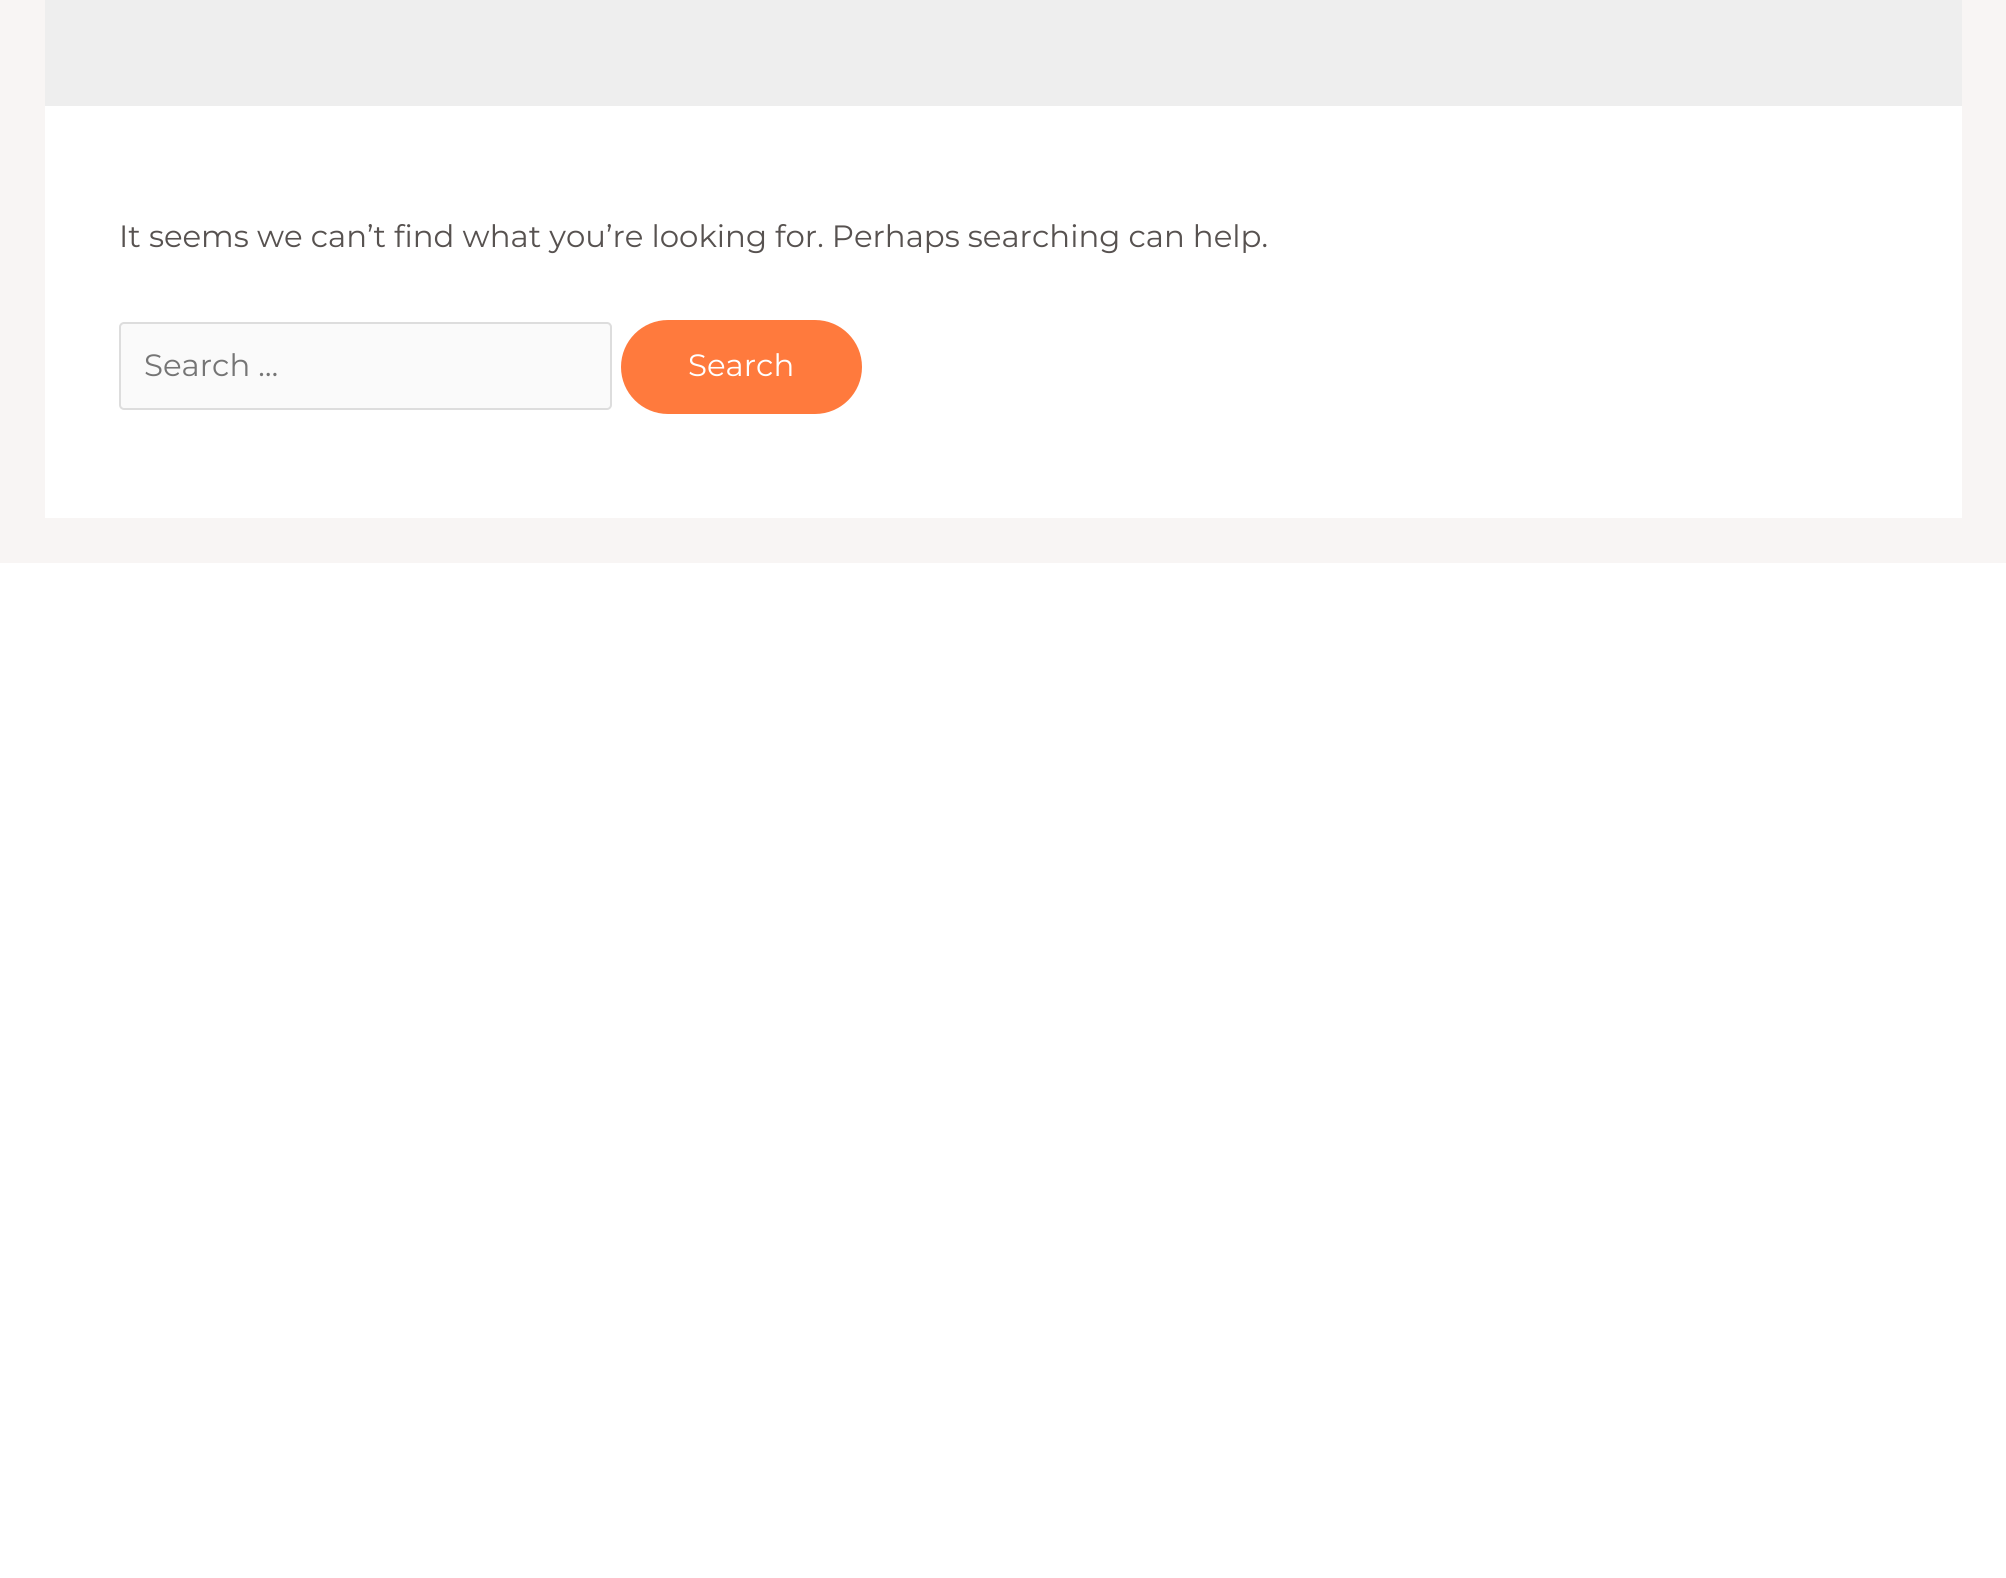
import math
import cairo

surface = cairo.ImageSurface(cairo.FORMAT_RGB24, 2006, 1578)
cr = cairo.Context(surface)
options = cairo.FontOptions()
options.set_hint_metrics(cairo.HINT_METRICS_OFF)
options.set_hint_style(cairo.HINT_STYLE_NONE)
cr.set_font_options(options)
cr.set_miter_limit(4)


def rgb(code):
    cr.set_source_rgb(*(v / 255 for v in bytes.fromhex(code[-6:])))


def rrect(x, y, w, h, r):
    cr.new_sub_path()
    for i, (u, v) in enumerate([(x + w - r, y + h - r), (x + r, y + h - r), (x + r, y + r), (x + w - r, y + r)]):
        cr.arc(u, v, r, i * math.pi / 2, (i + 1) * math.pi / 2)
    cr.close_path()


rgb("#f8f5f4")
cr.paint()
rgb("#eeeeee")
cr.rectangle(45, 0, 1917, 106)
cr.fill()
rgb("#ffffff")
cr.rectangle(45, 106, 1917, 412)
cr.fill()
rgb("#fafafa")
rrect(120, 323, 491, 86, 4)
cr.fill_preserve()
rgb("#dddddd")
cr.stroke()
rgb("#ff7a3d")
rrect(621, 320, 241, 94, 47)
cr.fill()
rgb("#ffffff")
cr.rectangle(0, 563, 2006, 1015)
cr.fill()
cr.select_font_face("Montserrat")
cr.set_font_size(30.8)
rgb("#575250")
cr.move_to(119, 247)
cr.show_text("It seems we can’t find what you’re looking for. Perhaps searching can help.")
rgb("#757575")
cr.move_to(144, 376)
cr.show_text("Search …")
rgb("#ffffff")
cr.move_to(688, 376)
cr.show_text("Search")
surface.write_to_png("page.png")
